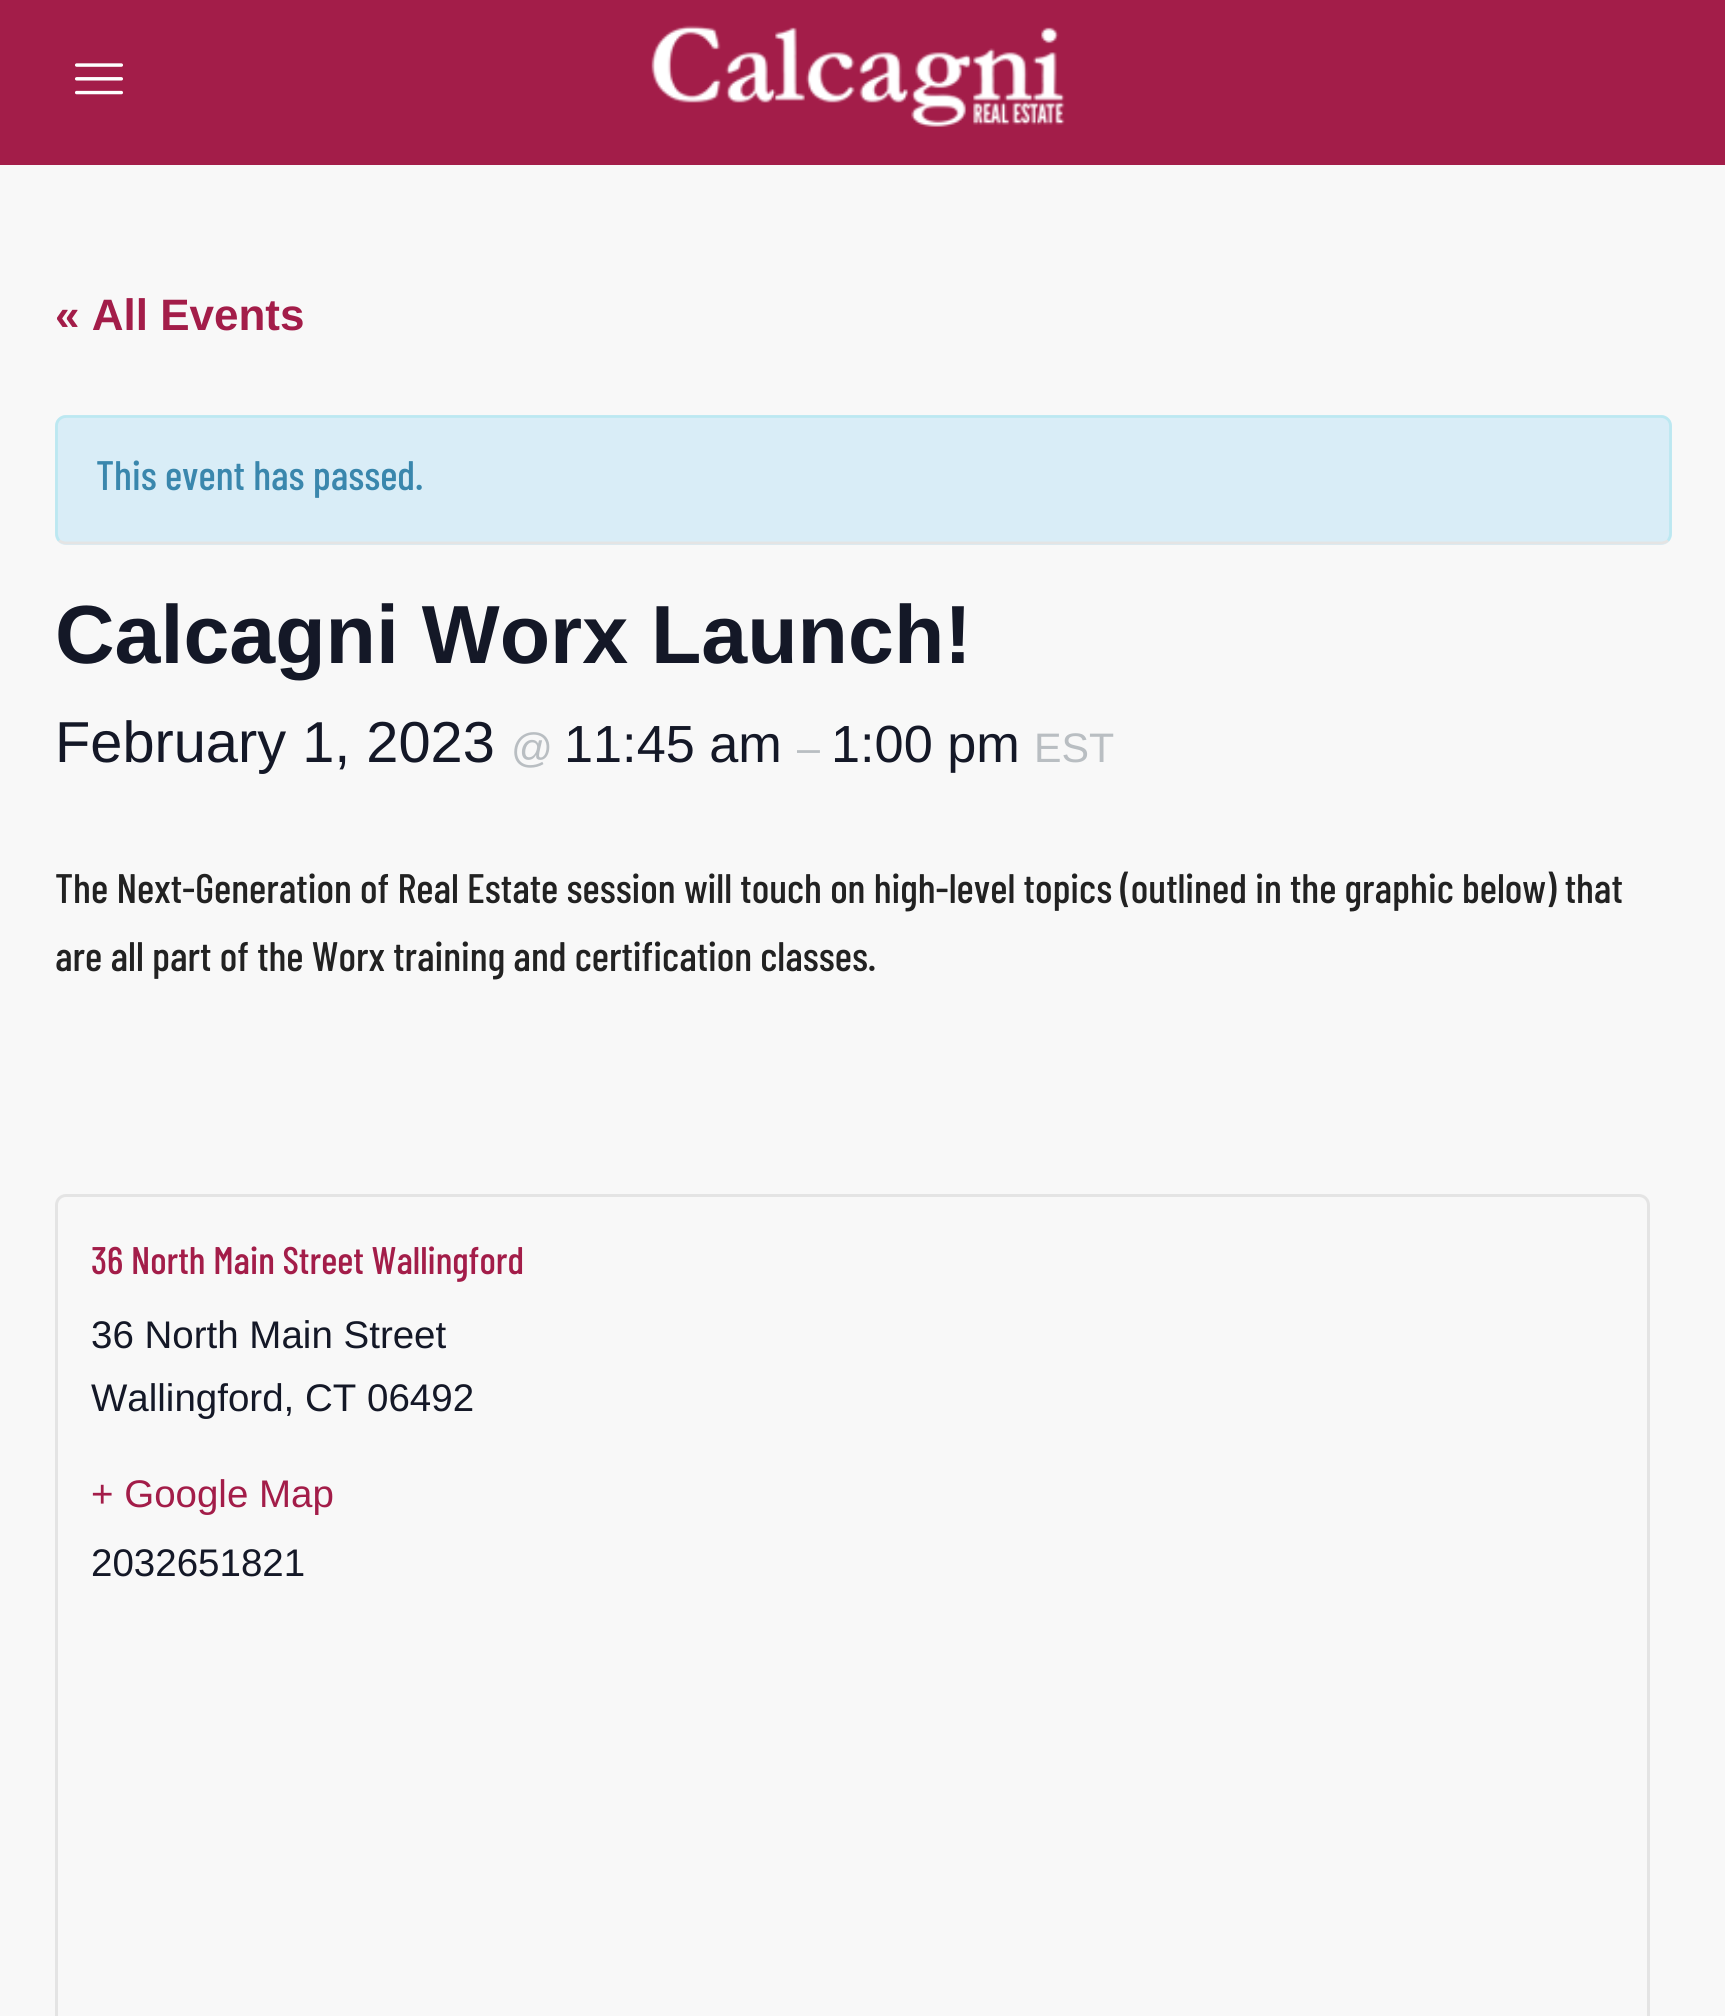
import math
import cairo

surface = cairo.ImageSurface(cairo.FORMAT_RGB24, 1725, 2016)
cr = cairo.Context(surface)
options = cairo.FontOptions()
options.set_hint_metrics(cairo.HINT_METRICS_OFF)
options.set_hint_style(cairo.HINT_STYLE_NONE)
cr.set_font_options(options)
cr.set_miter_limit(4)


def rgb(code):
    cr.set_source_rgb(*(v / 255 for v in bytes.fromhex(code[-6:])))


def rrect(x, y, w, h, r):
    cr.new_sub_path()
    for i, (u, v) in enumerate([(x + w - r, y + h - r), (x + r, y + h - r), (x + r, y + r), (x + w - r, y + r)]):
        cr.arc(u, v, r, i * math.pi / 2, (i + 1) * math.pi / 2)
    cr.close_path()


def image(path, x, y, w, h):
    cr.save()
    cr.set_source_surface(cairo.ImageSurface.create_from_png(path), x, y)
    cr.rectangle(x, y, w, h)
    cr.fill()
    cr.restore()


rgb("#f8f8f8")
cr.paint()
rgb("#a31d49")
cr.rectangle(0, 0, 1725, 165)
cr.fill()
image("img/1.png", 75, 63, 48, 32)
image("img/2.png", 651, 25, 414, 102)
rgb("#d9edf7")
rrect(55, 415, 1617, 130, 11)
cr.fill()
cr.new_path()
cr.move_to(1668, 540.5)
cr.curve_to(1666, 542, 1663.5, 543, 1661, 543)
cr.line_to(66, 543)
cr.curve_to(63.5, 543, 61, 542, 59, 540.5)
rgb("#e4e4e4")
cr.set_line_width(2.8)
cr.stroke()
cr.new_path()
cr.move_to(59, 540.5)
cr.curve_to(57.5, 538.5, 56.5, 536, 56.5, 533.5)
cr.line_to(56.5, 426)
cr.curve_to(56.5, 423.5, 57.5, 421, 59, 419.5)
cr.curve_to(61, 417.5, 63.5, 416.5, 66, 416.5)
cr.line_to(1661, 416.5)
cr.curve_to(1663.5, 416.5, 1666, 417.5, 1668, 419.5)
cr.curve_to(1669.5, 421, 1670.5, 423.5, 1670.5, 426)
cr.line_to(1670.5, 533.5)
cr.curve_to(1670.5, 536, 1669.5, 538.5, 1668, 540.5)
rgb("#bce8f1")
cr.stroke()
rrect(56.5, 1195.5, 1592, 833, 9.5)
rgb("#e4e4e4")
cr.set_line_width(3)
cr.stroke()
cr.select_font_face("Liberation Sans", cairo.FONT_SLANT_NORMAL, cairo.FONT_WEIGHT_BOLD)
cr.set_font_size(44)
rgb("#a31d49")
cr.move_to(55, 330)
cr.show_text("« All Events")
cr.select_font_face("Barlow Condensed Medium")
cr.set_font_size(41.25)
rgb("#3a87ad")
cr.move_to(96, 490)
cr.show_text("This event has passed.")
cr.select_font_face("Liberation Sans", cairo.FONT_SLANT_NORMAL, cairo.FONT_WEIGHT_BOLD)
cr.set_font_size(82.5)
rgb("#141827")
cr.move_to(55, 663)
cr.show_text("Calcagni Worx Launch!")
cr.select_font_face("Liberation Sans")
cr.set_font_size(57.75)
cr.move_to(55, 762)
cr.show_text("February 1, 2023")
cr.set_font_size(41.25)
rgb("#b9bec2")
cr.move_to(511, 762)
cr.show_text("@")
cr.set_font_size(52.25)
rgb("#141827")
cr.move_to(564, 762)
cr.show_text("11:45 am")
cr.set_font_size(41.25)
rgb("#b9bec2")
cr.move_to(797, 762)
cr.show_text("–")
cr.set_font_size(52.25)
rgb("#141827")
cr.move_to(831, 762)
cr.show_text("1:00 pm")
cr.set_font_size(41.25)
rgb("#b9bec2")
cr.move_to(1034, 762)
cr.show_text("EST")
cr.select_font_face("Barlow Condensed Medium")
rgb("#222222")
cr.move_to(55, 903)
cr.show_text("The Next-Generation of Real Estate session will touch on high-level topics (outlined in the graphic below) that")
cr.move_to(55, 971)
cr.show_text("are all part of the Worx training and certification classes.")
cr.set_font_size(38.5)
rgb("#a31d49")
cr.move_to(91, 1274)
cr.show_text("36 North Main Street Wallingford")
cr.select_font_face("Liberation Sans")
rgb("#141827")
cr.move_to(91, 1348)
cr.show_text("36 North Main Street")
cr.move_to(91, 1411)
cr.show_text("Wallingford, CT 06492")
rgb("#a31d49")
cr.move_to(91, 1507)
cr.show_text("+ Google Map")
rgb("#141827")
cr.move_to(91, 1576)
cr.show_text("2032651821")
surface.write_to_png("page.png")
